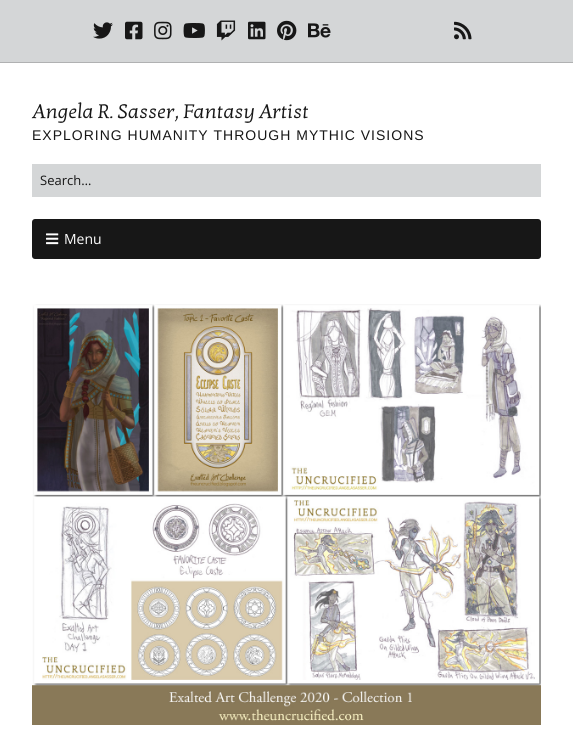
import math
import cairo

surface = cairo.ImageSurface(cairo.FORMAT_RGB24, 573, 741)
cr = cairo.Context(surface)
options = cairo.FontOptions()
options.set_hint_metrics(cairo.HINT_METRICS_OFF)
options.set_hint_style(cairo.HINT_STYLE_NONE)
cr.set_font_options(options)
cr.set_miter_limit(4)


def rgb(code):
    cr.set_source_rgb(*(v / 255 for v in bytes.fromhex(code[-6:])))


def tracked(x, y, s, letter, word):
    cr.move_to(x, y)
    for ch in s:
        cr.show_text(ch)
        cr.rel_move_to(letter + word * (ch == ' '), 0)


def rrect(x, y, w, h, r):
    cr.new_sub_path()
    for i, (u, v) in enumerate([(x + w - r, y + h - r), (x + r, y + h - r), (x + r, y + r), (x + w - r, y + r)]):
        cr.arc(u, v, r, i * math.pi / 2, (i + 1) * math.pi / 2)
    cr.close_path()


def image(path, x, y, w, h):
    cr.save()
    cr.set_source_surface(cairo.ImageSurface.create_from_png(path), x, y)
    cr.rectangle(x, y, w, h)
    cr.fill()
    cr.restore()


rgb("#d4d6d7")
cr.paint()
rgb("#b0b1b2")
cr.rectangle(0, 62, 573, 1)
cr.fill()
image("img/1.png", 93, 22, 20, 17)
image("img/2.png", 125, 21, 18, 19)
image("img/3.png", 154, 21, 18, 19)
image("img/4.png", 183, 23, 22, 15)
image("img/5.png", 216, 20, 20, 21)
image("img/6.png", 248, 21, 18, 19)
image("img/7.png", 277, 20, 20, 21)
image("img/8.png", 308, 23, 23, 15)
image("img/9.png", 454, 21, 18, 19)
rgb("#ffffff")
cr.rectangle(0, 63, 573, 678)
cr.fill()
rgb("#d4d6d7")
cr.rectangle(32, 164, 509, 33)
cr.fill()
rgb("#171717")
rrect(32, 219, 509, 40, 3)
cr.fill()
image("img/10.png", 46, 233, 13, 12)
image("img/11.png", 32, 304, 509, 421)
cr.select_font_face("Kotta One")
cr.set_font_size(20)
cr.move_to(32, 118)
cr.show_text("Angela R. Sasser, Fantasy Artist")
cr.select_font_face("Liberation Sans")
cr.set_font_size(14)
tracked(32, 140, "EXPLORING HUMANITY THROUGH MYTHIC VISIONS", 1, 0)
cr.select_font_face("Open Sans")
cr.set_font_size(13)
cr.move_to(40, 185)
cr.show_text("Search…")
cr.set_font_size(14)
rgb("#ffffff")
cr.move_to(64, 244)
cr.show_text("Menu")
surface.write_to_png("page.png")
